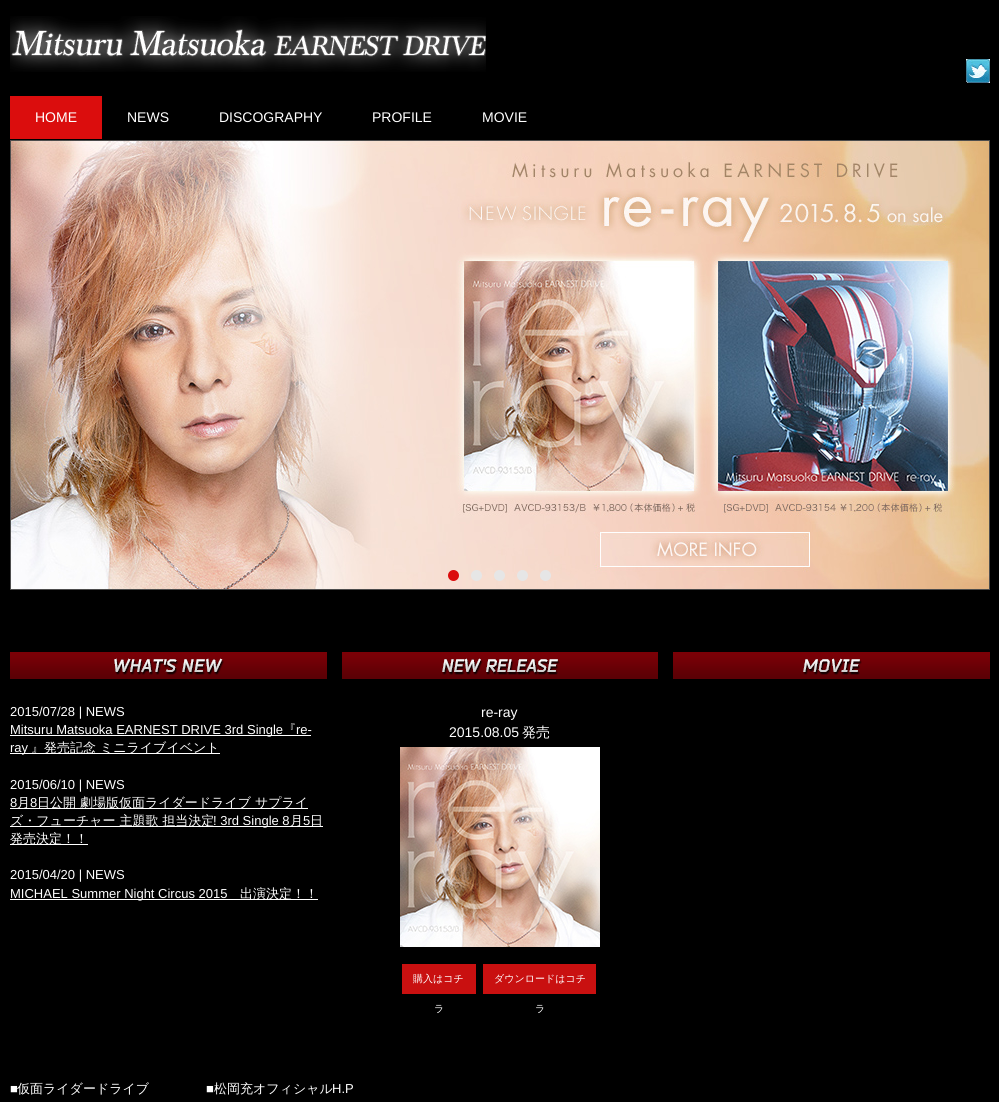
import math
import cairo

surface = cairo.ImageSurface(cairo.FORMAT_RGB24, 999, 1102)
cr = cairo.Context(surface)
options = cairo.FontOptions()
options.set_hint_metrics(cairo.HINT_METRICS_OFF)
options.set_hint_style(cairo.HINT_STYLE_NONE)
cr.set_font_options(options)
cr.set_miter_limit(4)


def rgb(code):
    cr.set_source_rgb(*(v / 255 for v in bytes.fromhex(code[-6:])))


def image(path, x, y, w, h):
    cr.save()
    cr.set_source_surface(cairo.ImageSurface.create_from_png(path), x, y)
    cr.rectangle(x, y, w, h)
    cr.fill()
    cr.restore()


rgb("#000000")
cr.paint()
image("img/1.png", 10, 16, 476, 56)
image("img/2.png", 966, 59, 24, 24)
rgb("#db0d0d")
cr.rectangle(10, 96, 92, 43)
cr.fill()
image("img/3.png", 10, 140, 980, 450)
cr.arc(453.5, 575.5, 5.5, 0, 2 * math.pi)
cr.fill()
rgb("#e6e6e6")
cr.arc(476.5, 575.5, 5.5, 0, 2 * math.pi)
cr.fill()
cr.arc(499.5, 575.5, 5.5, 0, 2 * math.pi)
cr.fill()
cr.arc(522.5, 575.5, 5.5, 0, 2 * math.pi)
cr.fill()
cr.arc(545.5, 575.5, 5.5, 0, 2 * math.pi)
cr.fill()
image("img/4.png", 673, 652, 317, 27)
image("img/5.png", 10, 652, 317, 27)
for x, y, w, h, color in [
    (10, 735, 301, 1, "#ffffff"),
    (10, 753, 210, 1, "#ffffff"),
    (10, 808, 298, 1, "#ffffff"),
    (10, 826, 313, 1, "#ffffff"),
    (10, 844, 78, 1, "#ffffff"),
    (10, 899, 308, 1, "#ffffff"),
]:
    rgb(color)
    cr.rectangle(x, y, w, h)
    cr.fill()
image("img/6.png", 342, 652, 316, 27)
image("img/7.png", 400, 747, 200, 200)
rgb("#c91010")
cr.rectangle(402, 964, 74, 30)
cr.fill()
cr.rectangle(483, 964, 113, 30)
cr.fill()
cr.select_font_face("Liberation Sans")
cr.set_font_size(14)
rgb("#ffffff")
for x, y, s in [
    (35, 122, "HOME"),
    (127, 122, "NEWS"),
    (219, 122, "DISCOGRAPHY"),
    (372, 122, "PROFILE"),
    (482, 122, "MOVIE"),
]:
    cr.move_to(x, y)
    cr.show_text(s)
cr.set_font_size(13)
cr.move_to(10, 716)
cr.show_text("2015/07/28 | NEWS")
cr.move_to(10, 734)
cr.show_text("Mitsuru Matsuoka EARNEST DRIVE 3rd Single")
cr.select_font_face("WenQuanYi Zen Hei Medium")
cr.move_to(283, 734)
cr.show_text("『")
cr.select_font_face("Liberation Sans")
cr.move_to(296, 734)
cr.show_text("re-")
cr.move_to(10, 752)
cr.show_text("ray")
cr.select_font_face("WenQuanYi Zen Hei Medium")
cr.move_to(31, 752)
cr.show_text("』発売記念 ミニライブイベント")
cr.select_font_face("Liberation Sans")
cr.move_to(10, 789)
cr.show_text("2015/06/10 | NEWS")
cr.move_to(10, 807)
cr.show_text("8")
cr.select_font_face("WenQuanYi Zen Hei Medium")
cr.move_to(17, 807)
cr.show_text("月")
cr.select_font_face("Liberation Sans")
cr.move_to(30, 807)
cr.show_text("8")
cr.select_font_face("WenQuanYi Zen Hei Medium")
cr.move_to(37, 807)
cr.show_text("日公開 劇場版仮面ライダードライブ サプライ")
cr.move_to(10, 825)
cr.show_text("ズ・フューチャー 主題歌 担当決定")
cr.select_font_face("Liberation Sans")
cr.move_to(213, 825)
cr.show_text("! 3rd Single 8")
cr.select_font_face("WenQuanYi Zen Hei Medium")
cr.move_to(290, 825)
cr.show_text("月")
cr.select_font_face("Liberation Sans")
cr.move_to(303, 825)
cr.show_text("5")
cr.select_font_face("WenQuanYi Zen Hei Medium")
cr.move_to(310, 825)
cr.show_text("日")
cr.move_to(10, 843)
cr.show_text("発売決定！！")
cr.select_font_face("Liberation Sans")
cr.move_to(10, 879)
cr.show_text("2015/04/20 | NEWS")
cr.move_to(10, 898)
cr.show_text("MICHAEL Summer Night Circus 2015")
cr.select_font_face("WenQuanYi Zen Hei Medium")
cr.move_to(240, 898)
cr.show_text("出演決定！！")
cr.select_font_face("Liberation Sans")
cr.set_font_size(14)
cr.move_to(481, 717)
cr.show_text("re-ray")
cr.move_to(449, 737)
cr.show_text("2015.08.05")
cr.select_font_face("WenQuanYi Zen Hei Medium")
cr.move_to(522, 737)
cr.show_text("発売")
cr.set_font_size(10)
for x, y, s in [
    (413, 982, "購入はコチ"),
    (434, 1012, "ラ"),
    (494, 982, "ダウンロードはコチ"),
    (535, 1012, "ラ"),
]:
    cr.move_to(x, y)
    cr.show_text(s)
cr.select_font_face("Liberation Sans")
cr.set_font_size(13)
cr.move_to(10, 1093)
cr.show_text("■")
cr.select_font_face("WenQuanYi Zen Hei Medium")
cr.move_to(17, 1093)
cr.show_text("仮面ライダードライブ")
cr.select_font_face("Liberation Sans")
cr.move_to(206, 1093)
cr.show_text("■")
cr.select_font_face("WenQuanYi Zen Hei Medium")
cr.move_to(214, 1093)
cr.show_text("松岡充オフィシャル")
cr.select_font_face("Liberation Sans")
cr.move_to(332, 1093)
cr.show_text("H.P")
surface.write_to_png("page.png")
